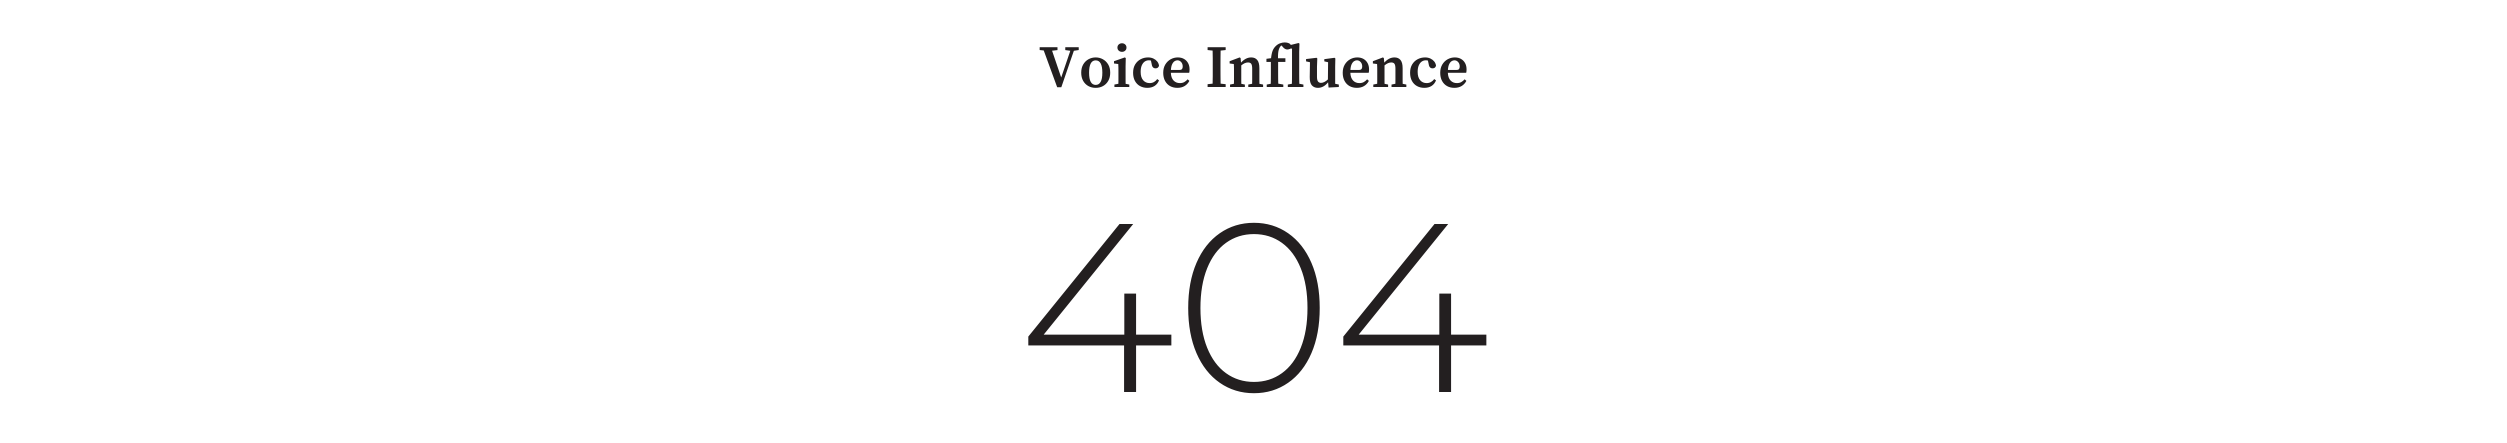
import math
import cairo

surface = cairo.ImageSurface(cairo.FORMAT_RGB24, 2507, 443)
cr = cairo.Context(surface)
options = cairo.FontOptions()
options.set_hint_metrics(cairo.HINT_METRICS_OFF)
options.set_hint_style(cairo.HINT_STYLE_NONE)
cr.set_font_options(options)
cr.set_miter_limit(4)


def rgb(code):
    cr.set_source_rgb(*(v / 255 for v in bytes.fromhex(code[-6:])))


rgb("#ffffff")
cr.paint()
cr.select_font_face("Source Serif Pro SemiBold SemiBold")
cr.set_font_size(60)
rgb("#231f20")
cr.move_to(1039, 87)
cr.show_text("Voice Influence")
cr.select_font_face("Montserrat Light")
cr.set_font_size(240)
cr.move_to(1018, 392)
cr.show_text("404")
surface.write_to_png("page.png")
